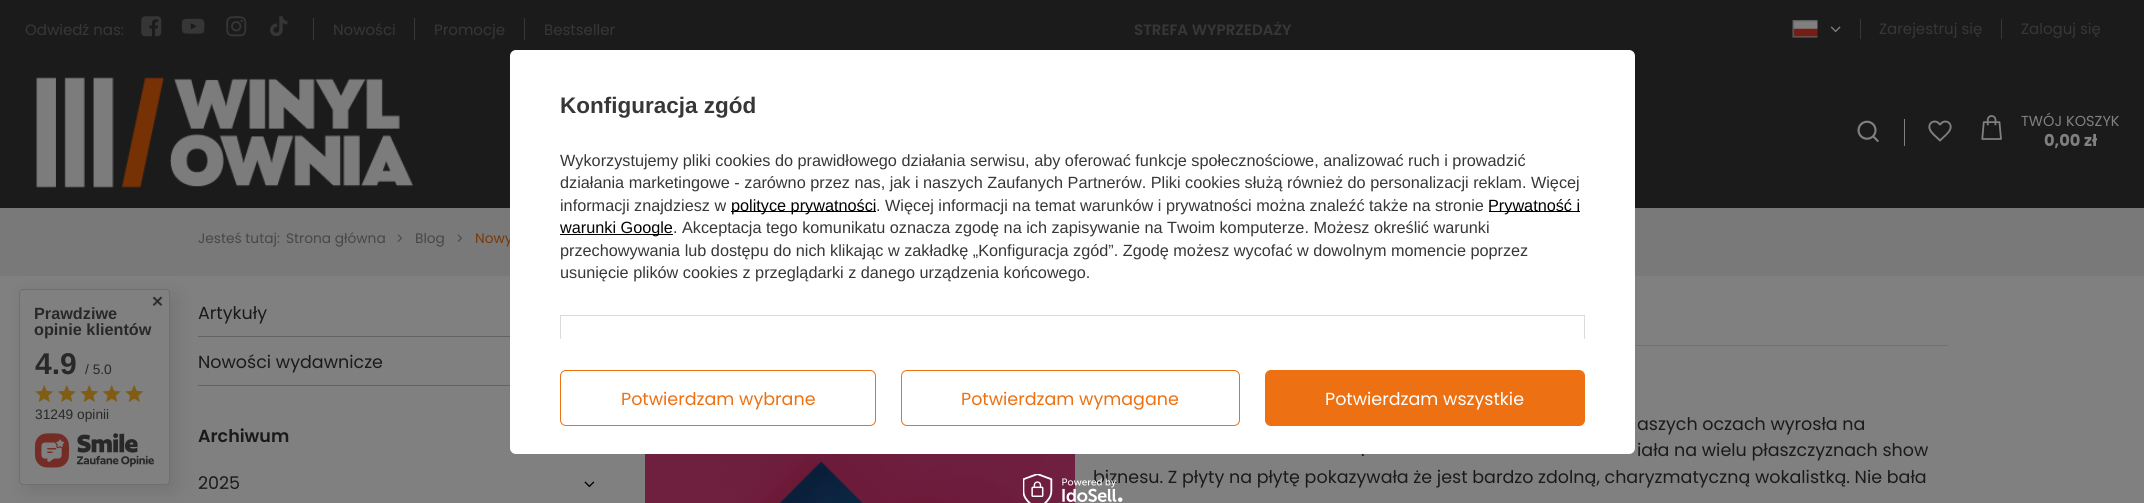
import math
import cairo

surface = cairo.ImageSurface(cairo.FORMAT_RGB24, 2144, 503)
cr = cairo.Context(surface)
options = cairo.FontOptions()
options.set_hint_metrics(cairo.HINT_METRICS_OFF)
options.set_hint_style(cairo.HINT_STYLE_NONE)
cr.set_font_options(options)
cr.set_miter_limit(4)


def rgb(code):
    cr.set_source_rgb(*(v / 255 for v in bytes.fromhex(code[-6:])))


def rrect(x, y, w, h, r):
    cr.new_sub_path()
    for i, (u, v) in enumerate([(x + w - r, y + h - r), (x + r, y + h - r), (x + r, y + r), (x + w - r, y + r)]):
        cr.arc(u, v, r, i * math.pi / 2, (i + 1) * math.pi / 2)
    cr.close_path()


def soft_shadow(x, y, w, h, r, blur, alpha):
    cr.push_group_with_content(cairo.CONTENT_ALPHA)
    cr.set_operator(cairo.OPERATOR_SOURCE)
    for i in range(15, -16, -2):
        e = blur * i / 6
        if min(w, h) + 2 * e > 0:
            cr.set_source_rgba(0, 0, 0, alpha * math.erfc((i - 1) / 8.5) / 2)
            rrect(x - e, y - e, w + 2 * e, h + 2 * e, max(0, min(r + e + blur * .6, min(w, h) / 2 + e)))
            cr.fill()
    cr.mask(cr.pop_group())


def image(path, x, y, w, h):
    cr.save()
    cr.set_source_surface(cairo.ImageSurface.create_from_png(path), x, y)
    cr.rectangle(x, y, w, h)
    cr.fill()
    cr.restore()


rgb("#808080")
cr.paint()
rgb("#1b1b1b")
cr.rectangle(0, 0, 2144, 208)
cr.fill()
image("img/1.png", 141, 16, 21, 21)
image("img/2.png", 181, 18, 24, 16)
image("img/3.png", 226, 16, 21, 21)
image("img/4.png", 270, 16, 18, 20)
for x, y, w, h, color in [
    (313, 18, 1, 22, "#373737"),
    (414, 18, 1, 22, "#373737"),
    (524, 18, 1, 22, "#373737"),
]:
    rgb(color)
    cr.rectangle(x, y, w, h)
    cr.fill()
image("img/5.png", 1792, 20, 26, 18)
image("img/6.png", 1830, 26, 11, 7)
cr.rectangle(1860, 19, 1, 20)
cr.fill()
cr.rectangle(2001, 19, 1, 20)
cr.fill()
image("img/7.png", 36, 77, 377, 111)
rgb("#808080")
cr.rectangle(1904, 119, 1, 27)
cr.fill()
image("img/8.png", 1857, 120, 22, 22)
image("img/9.png", 1928, 120, 24, 22)
image("img/10.png", 1981, 115, 21, 25)
rgb("#797979")
cr.rectangle(0, 208, 2144, 68)
cr.fill()
image("img/11.png", 397, 234, 5, 8)
image("img/11.png", 457, 234, 5, 8)
rgb("#626464")
cr.rectangle(198, 336, 312, 1)
cr.fill()
cr.rectangle(198, 385, 312, 1)
cr.fill()
image("img/12.png", 584, 481, 11, 7)
rgb("#717171")
cr.rectangle(1635, 345, 313, 1)
cr.fill()
image("img/13.png", 645, 454, 430, 49)
rgb("#000000")
soft_shadow(25, 295, 151, 196, 4, 9.5, 0.1)
rgb("#808080")
rrect(19.5, 289.5, 150, 195, 3.5)
cr.fill_preserve()
rgb("#6f6f6f")
cr.set_line_width(1)
cr.stroke()
image("img/14.png", 152, 296, 11, 10)
image("img/15.png", 35, 385, 19, 17)
image("img/16.png", 58, 385, 18, 17)
image("img/15.png", 80, 385, 19, 17)
image("img/16.png", 103, 385, 18, 17)
image("img/15.png", 125, 385, 19, 17)
image("img/17.png", 34, 433, 120, 35)
cr.select_font_face("Poppins")
cr.set_font_size(15)
rgb("#373737")
for x, y, s in [
    (25, 35, "Odwiedź nas:"),
    (333, 35, "Nowości"),
    (434, 35, "Promocje"),
    (544, 35, "Bestseller"),
]:
    cr.move_to(x, y)
    cr.show_text(s)
cr.select_font_face("Poppins SemiBold")
cr.move_to(1134, 35)
cr.show_text("STREFA WYPRZEDAŻY")
cr.select_font_face("Poppins")
cr.move_to(1879, 34)
cr.show_text("Zarejestruj się")
cr.move_to(2021, 34)
cr.show_text("Zaloguj się")
cr.set_font_size(14.5)
rgb("#808080")
cr.move_to(2021, 126)
cr.show_text("TWÓJ KOSZYK")
cr.select_font_face("Poppins", cairo.FONT_SLANT_NORMAL, cairo.FONT_WEIGHT_BOLD)
cr.set_font_size(16.25)
cr.move_to(2044, 146)
cr.show_text("0,00 zł")
cr.select_font_face("Poppins")
cr.set_font_size(13.75)
rgb("#474747")
for x, y, s in [
    (198, 243, "Jesteś tutaj:"),
    (286, 243, "Strona główna"),
    (415, 243, "Blog"),
]:
    cr.move_to(x, y)
    cr.show_text(s)
rgb("#773909")
cr.move_to(475, 243)
cr.show_text("Nowy")
cr.set_font_size(17.5)
rgb("#1a1a1a")
cr.move_to(198, 319)
cr.show_text("Artykuły")
cr.move_to(198, 368)
cr.show_text("Nowości wydawnicze")
cr.select_font_face("Poppins SemiBold")
cr.move_to(198, 442)
cr.show_text("Archiwum")
cr.select_font_face("Poppins")
for x, y, s in [
    (198, 489, "2025"),
    (1637, 430, "aszych oczach wyrosła na"),
    (1361, 456, "."),
    (1637, 456, "iała na wielu płaszczyznach show"),
    (1093, 483, "biznesu. Z płyty na płytę pokazywała że jest bardzo zdolną, charyzmatyczną wokalistką. Nie bała"),
]:
    cr.move_to(x, y)
    cr.show_text(s)
cr.select_font_face("Liberation Sans", cairo.FONT_SLANT_NORMAL, cairo.FONT_WEIGHT_BOLD)
cr.set_font_size(16.25)
rgb("#282828")
cr.move_to(34, 319)
cr.show_text("Prawdziwe")
cr.move_to(34, 335)
cr.show_text("opinie klientów")
cr.set_font_size(30)
cr.move_to(35, 374)
cr.show_text("4.9")
cr.select_font_face("Liberation Sans")
cr.set_font_size(13.75)
cr.move_to(85, 374)
cr.show_text("/ 5.0")
cr.move_to(35, 419)
cr.show_text("31249 opinii")
rgb("#ffffff")
rrect(510, 50, 1125, 404, 6)
cr.fill()
cr.select_font_face("Liberation Sans", cairo.FONT_SLANT_NORMAL, cairo.FONT_WEIGHT_BOLD)
cr.set_font_size(22.5)
rgb("#373737")
cr.move_to(560, 113)
cr.show_text("Konfiguracja zgód")
cr.select_font_face("Liberation Sans")
cr.set_font_size(16.25)
for x, y, s in [
    (560, 166, "Wykorzystujemy pliki cookies do prawidłowego działania serwisu, aby oferować funkcje społecznościowe, analizować ruch i prowadzić"),
    (560, 188, "działania marketingowe - zarówno przez nas, jak i naszych Zaufanych Partnerów. Pliki cookies służą również do personalizacji reklam. Więcej"),
    (560, 211, "informacji znajdziesz w"),
]:
    cr.move_to(x, y)
    cr.show_text(s)
rgb("#000000")
cr.rectangle(731, 211, 145, 1)
cr.fill()
cr.move_to(731, 211)
cr.show_text("polityce prywatności")
rgb("#373737")
cr.move_to(876, 211)
cr.show_text(". Więcej informacji na temat warunków i prywatności można znaleźć także na stronie")
rgb("#000000")
cr.rectangle(1489, 211, 91, 1)
cr.fill()
cr.move_to(1488, 211)
cr.show_text("Prywatność i")
cr.rectangle(560, 234, 113, 1)
cr.fill()
cr.move_to(560, 233)
cr.show_text("warunki Google")
rgb("#373737")
for x, y, s in [
    (673, 233, ". Akceptacja tego komunikatu oznacza zgodę na ich zapisywanie na Twoim komputerze. Możesz określić warunki"),
    (560, 256, "przechowywania lub dostępu do nich klikając w zakładkę „Konfiguracja zgód”. Zgodę możesz wycofać w dowolnym momencie poprzez"),
    (560, 278, "usunięcie plików cookies z przeglądarki z danego urządzenia końcowego."),
]:
    cr.move_to(x, y)
    cr.show_text(s)
for x, y, w, h, color in [
    (560, 315, 1025, 1, "#dbdbdb"),
    (1584, 315, 1, 24, "#dbdbdb"),
    (560, 315, 1, 24, "#dbdbdb"),
]:
    rgb(color)
    cr.rectangle(x, y, w, h)
    cr.fill()
rrect(560.5, 370.5, 315, 55, 5.5)
rgb("#ed7112")
cr.stroke()
cr.select_font_face("Poppins")
cr.set_font_size(17.5)
cr.move_to(621, 405)
cr.show_text("Potwierdzam wybrane")
rrect(901.5, 370.5, 338, 55, 5.5)
cr.stroke()
cr.move_to(961, 405)
cr.show_text("Potwierdzam wymagane")
rrect(1265.5, 370.5, 319, 55, 5.5)
cr.fill_preserve()
cr.stroke()
rgb("#ffffff")
cr.move_to(1325, 405)
cr.show_text("Potwierdzam wszystkie")
image("img/18.png", 1023, 474, 100, 29)
surface.write_to_png("page.png")
